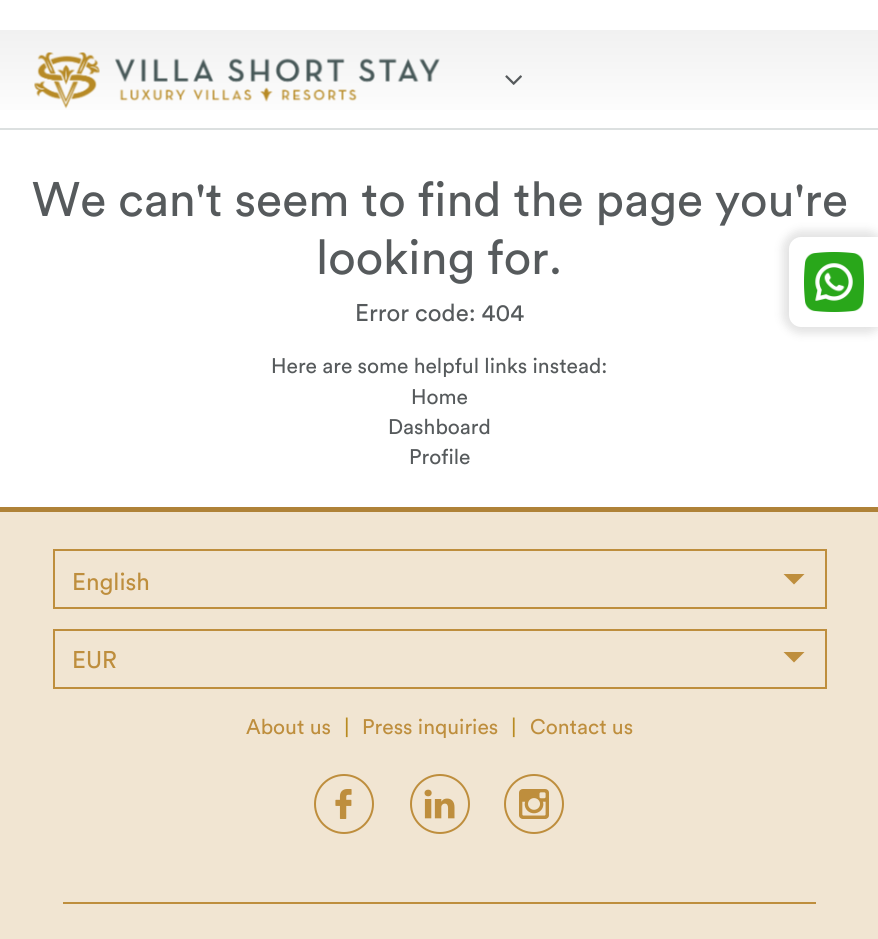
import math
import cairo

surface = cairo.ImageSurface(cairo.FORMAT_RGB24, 878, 939)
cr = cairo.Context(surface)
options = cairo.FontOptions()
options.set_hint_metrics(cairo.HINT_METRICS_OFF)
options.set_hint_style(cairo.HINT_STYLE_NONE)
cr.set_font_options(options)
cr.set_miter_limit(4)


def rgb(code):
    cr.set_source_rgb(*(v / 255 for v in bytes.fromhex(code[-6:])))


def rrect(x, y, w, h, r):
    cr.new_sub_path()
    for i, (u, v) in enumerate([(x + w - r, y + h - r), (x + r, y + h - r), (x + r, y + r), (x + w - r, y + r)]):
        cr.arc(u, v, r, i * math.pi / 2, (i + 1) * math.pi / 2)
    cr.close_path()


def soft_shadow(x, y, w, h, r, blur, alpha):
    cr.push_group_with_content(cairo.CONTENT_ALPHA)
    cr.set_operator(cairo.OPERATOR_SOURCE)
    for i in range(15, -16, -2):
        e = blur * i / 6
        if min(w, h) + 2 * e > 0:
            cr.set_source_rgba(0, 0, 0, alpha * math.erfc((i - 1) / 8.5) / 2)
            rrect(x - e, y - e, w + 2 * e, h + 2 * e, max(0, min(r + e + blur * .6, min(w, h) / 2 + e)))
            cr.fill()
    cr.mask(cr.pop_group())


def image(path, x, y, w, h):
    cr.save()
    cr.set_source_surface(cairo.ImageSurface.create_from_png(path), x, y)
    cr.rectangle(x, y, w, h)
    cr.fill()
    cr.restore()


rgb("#ffffff")
cr.paint()
gradient = cairo.LinearGradient(440, 30, 440, 128)
gradient.add_color_stop_rgba(0, 0.945, 0.945, 0.945, 1)
gradient.add_color_stop_rgba(1, 1, 1, 1, 1)
cr.set_source(gradient)
cr.rectangle(0, 30, 878, 80)
cr.fill()
rgb("#dce0e0")
cr.rectangle(0, 128, 878, 2)
cr.fill()
image("img/1.png", 34, 52, 406, 57)
image("img/2.png", 505, 75, 17, 10)
rgb("#000000")
soft_shadow(783, 231, 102, 102, 18, 5, 0.12)
rgb("#ffffff")
cr.new_path()
cr.move_to(801, 237)
cr.line_to(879, 237)
cr.line_to(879, 327)
cr.line_to(801, 327)
cr.curve_to(794.5, 327, 789, 321.5, 789, 315)
cr.line_to(789, 249)
cr.curve_to(789, 242.5, 794.5, 237, 801, 237)
cr.close_path()
cr.fill()
image("img/3.png", 804, 252, 60, 60)
rgb("#f1e5d2")
cr.rectangle(0, 512, 878, 427)
cr.fill()
rgb("#af8238")
cr.rectangle(0, 507, 878, 5)
cr.fill()
cr.rectangle(54, 550, 772, 58)
rgb("#be8e3d")
cr.stroke()
cr.new_path()
cr.move_to(804.5, 574)
cr.line_to(783.5, 574)
cr.line_to(794, 584.5)
cr.close_path()
cr.fill()
cr.rectangle(54, 630, 772, 58)
cr.stroke()
cr.new_path()
cr.move_to(804.5, 652)
cr.line_to(783.5, 652)
cr.line_to(794, 662.5)
cr.close_path()
cr.fill()
cr.arc(344, 804, 29, 0, 2 * math.pi)
cr.stroke()
image("img/4.png", 335, 789, 17, 30)
cr.arc(440, 804, 29, 0, 2 * math.pi)
cr.stroke()
image("img/5.png", 424, 789, 31, 30)
cr.arc(534, 804, 29, 0, 2 * math.pi)
cr.stroke()
image("img/6.png", 519, 789, 30, 30)
cr.rectangle(63, 902, 753, 2)
cr.fill()
cr.select_font_face("Circular")
cr.set_font_size(48)
rgb("#565a5c")
cr.move_to(32, 216)
cr.show_text("We can't seem to find the page you're")
cr.move_to(316, 274)
cr.show_text("looking for.")
cr.set_font_size(24)
cr.move_to(355, 321)
cr.show_text("Error code: 404")
cr.set_font_size(21)
for x, y, s in [
    (271, 373, "Here are some helpful links instead:"),
    (411, 404, "Home"),
    (388, 434, "Dashboard"),
    (409, 464, "Profile"),
]:
    cr.move_to(x, y)
    cr.show_text(s)
cr.set_font_size(24)
rgb("#be8e3d")
cr.move_to(72, 590)
cr.show_text("English")
cr.move_to(72, 668)
cr.show_text("EUR")
cr.set_font_size(21)
cr.move_to(246, 734)
cr.show_text("About us")
rgb("#b88b21")
cr.move_to(344, 734)
cr.show_text("|")
rgb("#be8e3d")
cr.move_to(362, 734)
cr.show_text("Press inquiries")
rgb("#b88b21")
cr.move_to(511, 734)
cr.show_text("|")
rgb("#be8e3d")
cr.move_to(530, 734)
cr.show_text("Contact us")
surface.write_to_png("page.png")
